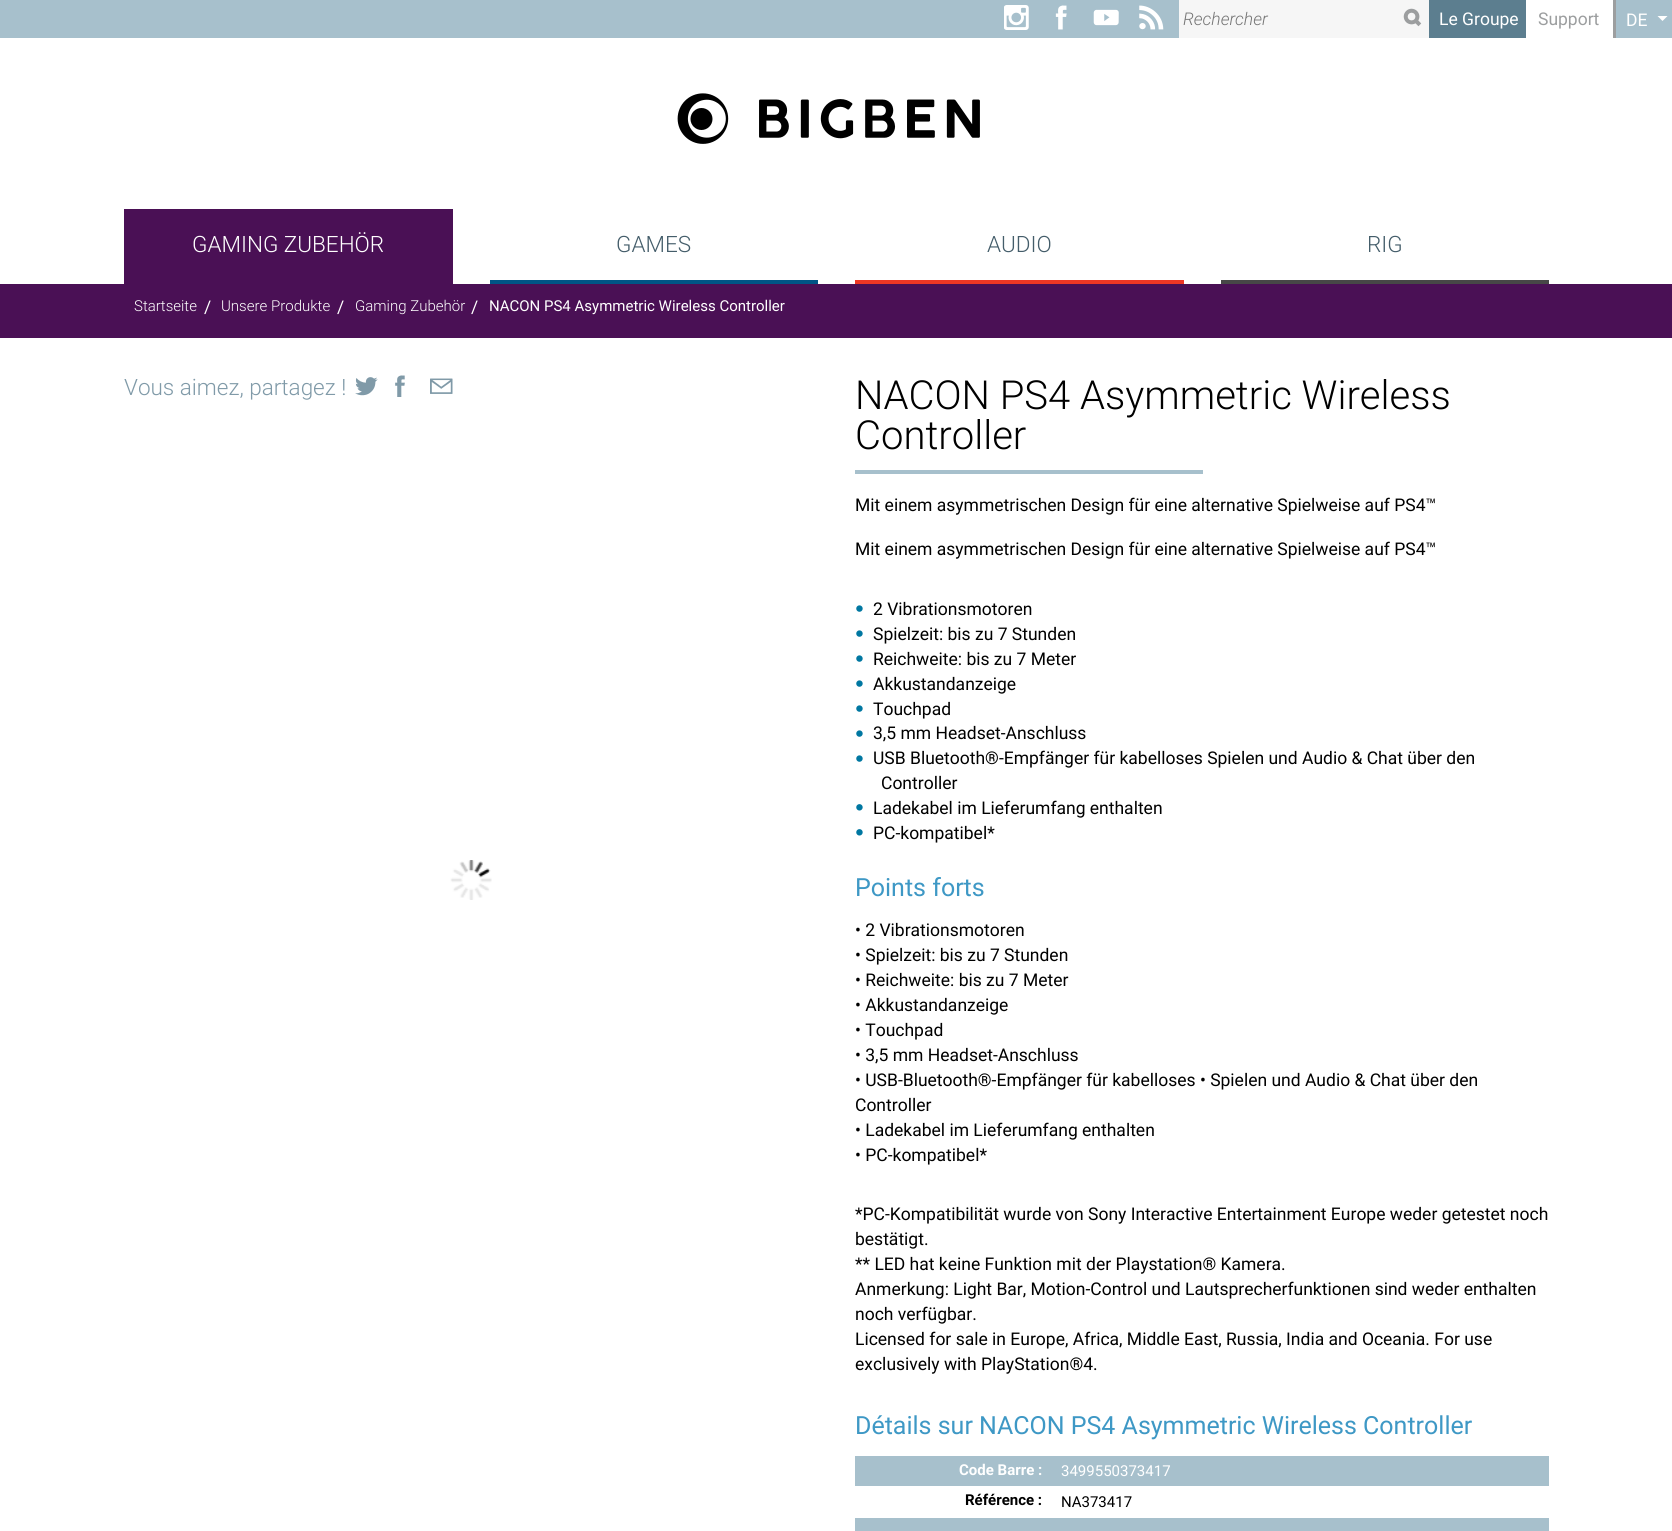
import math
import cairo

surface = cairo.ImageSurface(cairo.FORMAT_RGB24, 1672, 1531)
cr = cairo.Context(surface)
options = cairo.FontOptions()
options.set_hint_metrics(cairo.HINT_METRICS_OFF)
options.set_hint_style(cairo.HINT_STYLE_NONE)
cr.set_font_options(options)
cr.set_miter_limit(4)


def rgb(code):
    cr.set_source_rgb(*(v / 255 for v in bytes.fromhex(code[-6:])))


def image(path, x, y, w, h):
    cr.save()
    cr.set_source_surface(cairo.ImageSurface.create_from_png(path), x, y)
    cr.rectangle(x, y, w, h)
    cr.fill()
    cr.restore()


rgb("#ffffff")
cr.paint()
rgb("#a7c0cc")
cr.rectangle(0, 0, 1672, 38)
cr.fill()
image("img/1.png", 1004, 5, 25, 25)
image("img/2.png", 1055, 5, 12, 25)
image("img/3.png", 1093, 9, 26, 17)
image("img/4.png", 1139, 5, 25, 25)
rgb("#f6f6f6")
cr.rectangle(1179, 0, 250, 38)
cr.fill()
image("img/5.png", 1403, 8, 19, 19)
for x, y, w, h, color in [
    (1429, 0, 97, 38, "#5c7e8f"),
    (1526, 0, 87, 38, "#ffffff"),
    (1613, 0, 3, 38, "#9c9e9f"),
]:
    rgb(color)
    cr.rectangle(x, y, w, h)
    cr.fill()
rgb("#ffffff")
cr.new_path()
cr.move_to(1657.5, 16)
cr.line_to(1667.5, 16)
cr.line_to(1662.5, 21)
cr.close_path()
cr.fill()
image("img/6.png", 677, 93, 303, 51)
for x, y, w, h, color in [
    (124, 209, 329, 75, "#4a1055"),
    (490, 280, 328, 4, "#005486"),
    (855, 280, 329, 4, "#ee3724"),
    (1221, 280, 328, 4, "#474747"),
    (0, 284, 1672, 54, "#4a1055"),
]:
    rgb(color)
    cr.rectangle(x, y, w, h)
    cr.fill()
image("img/7.png", 355, 377, 23, 19)
image("img/8.png", 395, 375, 10, 22)
image("img/9.png", 430, 378, 23, 16)
image("img/10.png", 450, 860, 42, 40)
rgb("#a7c0cc")
cr.rectangle(855, 470, 348, 4)
cr.fill()
image("img/11.png", 856, 605, 7, 7)
image("img/11.png", 856, 630, 7, 7)
image("img/11.png", 856, 655, 7, 7)
image("img/11.png", 856, 680, 7, 7)
image("img/11.png", 856, 705, 7, 7)
image("img/11.png", 856, 730, 7, 7)
image("img/11.png", 856, 755, 7, 7)
image("img/12.png", 856, 804, 7, 7)
image("img/12.png", 856, 829, 7, 7)
cr.rectangle(855, 1456, 694, 30)
cr.fill()
cr.rectangle(855, 1518, 694, 13)
cr.fill()
cr.select_font_face("Roboto Light", cairo.FONT_SLANT_ITALIC)
cr.set_font_size(17.5)
rgb("#757575")
cr.move_to(1183, 25)
cr.show_text("Rechercher")
cr.select_font_face("Roboto")
rgb("#ffffff")
cr.move_to(1439, 25)
cr.show_text("Le Groupe")
rgb("#9c9e9f")
cr.move_to(1538, 25)
cr.show_text("Support")
rgb("#ffffff")
cr.move_to(1626, 26)
cr.show_text("DE")
cr.select_font_face("Roboto Light")
cr.set_font_size(22.5)
cr.move_to(192, 252)
cr.show_text("GAMING ZUBEHÖR")
rgb("#445d6a")
for x, y, s in [
    (616, 252, "GAMES"),
    (987, 252, "AUDIO"),
    (1367, 252, "RIG"),
]:
    cr.move_to(x, y)
    cr.show_text(s)
cr.set_font_size(15)
rgb("#ffffff")
cr.move_to(134, 311)
cr.show_text("Startseite")
cr.select_font_face("Roboto")
cr.set_font_size(17.5)
cr.move_to(204, 313)
cr.show_text("/")
cr.select_font_face("Roboto Light")
cr.set_font_size(15)
cr.move_to(221, 311)
cr.show_text("Unsere Produkte")
cr.select_font_face("Roboto")
cr.set_font_size(17.5)
cr.move_to(337, 313)
cr.show_text("/")
cr.select_font_face("Roboto Light")
cr.set_font_size(15)
cr.move_to(355, 311)
cr.show_text("Gaming Zubehör")
cr.select_font_face("Roboto")
cr.set_font_size(17.5)
cr.move_to(471, 313)
cr.show_text("/")
cr.set_font_size(15)
cr.move_to(489, 311)
cr.show_text("NACON PS4 Asymmetric Wireless Controller")
cr.select_font_face("Roboto Light")
cr.set_font_size(22.5)
rgb("#809aa8")
cr.move_to(124, 395)
cr.show_text("Vous aimez, partagez !")
cr.set_font_size(40)
rgb("#000000")
cr.move_to(855, 409)
cr.show_text("NACON PS4 Asymmetric Wireless")
cr.move_to(855, 449)
cr.show_text("Controller")
cr.select_font_face("Roboto")
cr.set_font_size(17.5)
for x, y, s in [
    (855, 511, "Mit einem asymmetrischen Design für eine alternative Spielweise auf PS4™"),
    (855, 555, "Mit einem asymmetrischen Design für eine alternative Spielweise auf PS4™"),
    (873, 615, "2 Vibrationsmotoren"),
    (873, 640, "Spielzeit: bis zu 7 Stunden"),
    (873, 665, "Reichweite: bis zu 7 Meter"),
    (873, 690, "Akkustandanzeige"),
    (873, 715, "Touchpad"),
    (873, 739, "3,5 mm Headset-Anschluss"),
    (873, 764, "USB Bluetooth®-Empfänger für kabelloses Spielen und Audio & Chat über den"),
    (881, 789, "Controller"),
    (873, 814, "Ladekabel im Lieferumfang enthalten"),
    (873, 839, "PC-kompatibel*"),
]:
    cr.move_to(x, y)
    cr.show_text(s)
cr.set_font_size(25)
rgb("#3e98c5")
cr.move_to(855, 896)
cr.show_text("Points forts")
cr.set_font_size(17.5)
rgb("#000000")
for x, y, s in [
    (855, 936, "• 2 Vibrationsmotoren"),
    (855, 961, "• Spielzeit: bis zu 7 Stunden"),
    (855, 986, "• Reichweite: bis zu 7 Meter"),
    (855, 1011, "• Akkustandanzeige"),
    (855, 1036, "• Touchpad"),
    (855, 1061, "• 3,5 mm Headset-Anschluss"),
    (855, 1086, "• USB-Bluetooth®-Empfänger für kabelloses • Spielen und Audio & Chat über den"),
    (855, 1111, "Controller"),
    (855, 1136, "• Ladekabel im Lieferumfang enthalten"),
    (855, 1161, "• PC-kompatibel*"),
    (855, 1220, "*PC-Kompatibilität wurde von Sony Interactive Entertainment Europe weder getestet noch"),
    (855, 1245, "bestätigt."),
    (855, 1270, "** LED hat keine Funktion mit der Playstation® Kamera."),
    (855, 1295, "Anmerkung: Light Bar, Motion-Control und Lautsprecherfunktionen sind weder enthalten"),
    (855, 1320, "noch verfügbar."),
    (855, 1345, "Licensed for sale in Europe, Africa, Middle East, Russia, India and Oceania. For use"),
    (855, 1370, "exclusively with PlayStation®4."),
]:
    cr.move_to(x, y)
    cr.show_text(s)
cr.set_font_size(25)
rgb("#3e98c5")
cr.move_to(855, 1434)
cr.show_text("Détails sur NACON PS4 Asymmetric Wireless Controller")
cr.select_font_face("Roboto", cairo.FONT_SLANT_NORMAL, cairo.FONT_WEIGHT_BOLD)
cr.set_font_size(15)
rgb("#ffffff")
cr.move_to(959, 1475)
cr.show_text("Code Barre :")
cr.select_font_face("Roboto")
cr.move_to(1061, 1476)
cr.show_text("3499550373417")
cr.select_font_face("Roboto", cairo.FONT_SLANT_NORMAL, cairo.FONT_WEIGHT_BOLD)
rgb("#000000")
cr.move_to(965, 1505)
cr.show_text("Référence :")
cr.select_font_face("Roboto")
cr.move_to(1061, 1507)
cr.show_text("NA373417")
surface.write_to_png("page.png")
